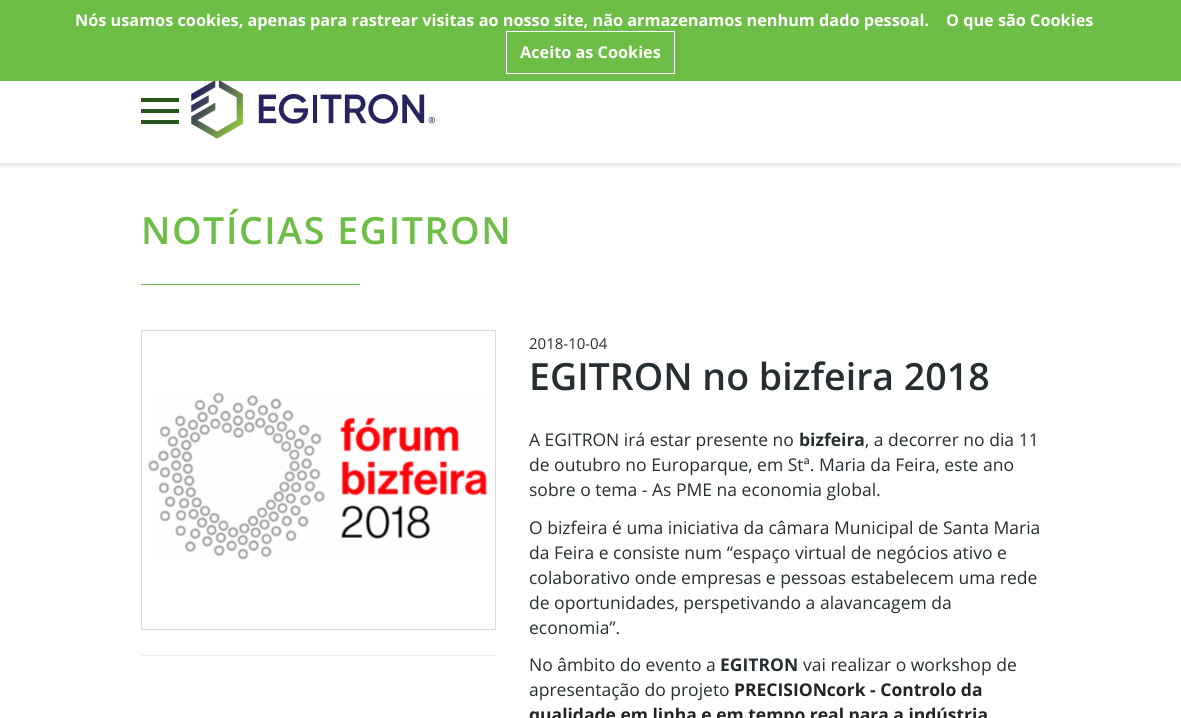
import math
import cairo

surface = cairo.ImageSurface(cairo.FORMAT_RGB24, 1181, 718)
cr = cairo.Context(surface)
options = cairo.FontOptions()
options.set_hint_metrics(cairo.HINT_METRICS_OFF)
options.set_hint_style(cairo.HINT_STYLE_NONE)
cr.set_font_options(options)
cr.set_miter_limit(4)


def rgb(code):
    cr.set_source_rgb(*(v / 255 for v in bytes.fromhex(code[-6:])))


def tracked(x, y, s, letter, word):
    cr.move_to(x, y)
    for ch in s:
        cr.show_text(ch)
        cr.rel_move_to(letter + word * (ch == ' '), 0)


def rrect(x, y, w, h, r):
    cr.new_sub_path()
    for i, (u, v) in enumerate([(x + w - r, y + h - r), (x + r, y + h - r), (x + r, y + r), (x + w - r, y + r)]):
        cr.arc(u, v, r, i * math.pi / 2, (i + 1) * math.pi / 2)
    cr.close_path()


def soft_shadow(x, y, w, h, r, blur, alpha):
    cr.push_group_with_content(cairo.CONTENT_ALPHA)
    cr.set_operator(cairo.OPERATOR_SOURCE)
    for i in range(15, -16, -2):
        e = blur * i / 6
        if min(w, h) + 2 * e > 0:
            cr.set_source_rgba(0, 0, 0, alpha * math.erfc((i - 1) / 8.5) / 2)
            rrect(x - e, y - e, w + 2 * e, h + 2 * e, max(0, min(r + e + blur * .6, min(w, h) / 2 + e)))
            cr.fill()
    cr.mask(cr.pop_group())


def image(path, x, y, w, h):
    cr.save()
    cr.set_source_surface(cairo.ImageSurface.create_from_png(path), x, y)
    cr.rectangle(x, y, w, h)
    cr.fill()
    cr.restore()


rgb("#ffffff")
cr.paint()
rgb("#000000")
soft_shadow(0, 60, 1181, 106, 0, 2, 0.1)
rgb("#6dbe46")
cr.rectangle(0, 0, 1181, 81)
cr.fill()
cr.rectangle(506.5, 31.5, 168, 42)
rgb("#ffffff")
cr.set_line_width(1)
cr.stroke()
for x, y, w, h, color in [
    (0, 81, 1181, 82, "#ffffff"),
    (141, 109, 38, 4, "#265619"),
    (141, 98, 38, 4, "#265619"),
    (141, 120, 38, 4, "#265619"),
]:
    rgb(color)
    cr.rectangle(x, y, w, h)
    cr.fill()
image("img/1.png", 191, 81, 244, 58)
rgb("#6dbe46")
cr.rectangle(141, 284, 219, 1)
cr.fill()
cr.rectangle(141.5, 330.5, 354, 299)
rgb("#d4dfcf")
cr.stroke()
image("img/2.png", 148, 392, 340, 168)
rgb("#eeeeee")
cr.rectangle(141, 655, 355, 1)
cr.fill()
cr.select_font_face("Open Sans", cairo.FONT_SLANT_NORMAL, cairo.FONT_WEIGHT_BOLD)
cr.set_font_size(16.25)
rgb("#ffffff")
for x, y, s in [
    (75, 26, "Nós usamos cookies, apenas para rastrear visitas ao nosso site, não armazenamos nenhum dado pessoal."),
    (946, 26, "O que são Cookies"),
    (520, 58, "Aceito as Cookies"),
]:
    cr.move_to(x, y)
    cr.show_text(s)
cr.select_font_face("Open Sans SemiBold")
cr.set_font_size(37.5)
rgb("#6dbe46")
tracked(141, 244, "NOTÍCIAS EGITRON", 1.6, 0)
cr.select_font_face("Open Sans")
cr.set_font_size(15)
rgb("#262e31")
cr.move_to(529, 349)
cr.show_text("2018-10-04")
cr.select_font_face("Open Sans SemiBold")
cr.set_font_size(37.5)
cr.move_to(529, 390)
cr.show_text("EGITRON no bizfeira 2018")
cr.select_font_face("Open Sans")
cr.set_font_size(17.5)
cr.move_to(529, 446)
cr.show_text("A EGITRON irá estar presente no")
cr.select_font_face("Open Sans", cairo.FONT_SLANT_NORMAL, cairo.FONT_WEIGHT_BOLD)
cr.move_to(799, 446)
cr.show_text("bizfeira")
cr.select_font_face("Open Sans")
for x, y, s in [
    (865, 446, ", a decorrer no dia 11"),
    (529, 471, "de outubro no Europarque, em Stª. Maria da Feira, este ano"),
    (529, 496, "sobre o tema - As PME na economia global."),
    (529, 534, "O bizfeira é uma iniciativa da câmara Municipal de Santa Maria"),
    (529, 559, "da Feira e consiste num “espaço virtual de negócios ativo e"),
    (529, 584, "colaborativo onde empresas e pessoas estabelecem uma rede"),
    (529, 609, "de oportunidades, perspetivando a alavancagem da"),
    (529, 634, "economia”."),
    (529, 671, "No âmbito do evento a"),
]:
    cr.move_to(x, y)
    cr.show_text(s)
cr.select_font_face("Open Sans", cairo.FONT_SLANT_NORMAL, cairo.FONT_WEIGHT_BOLD)
cr.move_to(720, 671)
cr.show_text("EGITRON")
cr.select_font_face("Open Sans")
cr.move_to(803, 671)
cr.show_text("vai realizar o workshop de")
cr.move_to(529, 696)
cr.show_text("apresentação do projeto")
cr.select_font_face("Open Sans", cairo.FONT_SLANT_NORMAL, cairo.FONT_WEIGHT_BOLD)
rgb("#232323")
cr.move_to(734, 696)
cr.show_text("PRECISIONcork - Controlo da")
cr.move_to(529, 721)
cr.show_text("qualidade em linha e em tempo real para a indústria")
surface.write_to_png("page.png")
